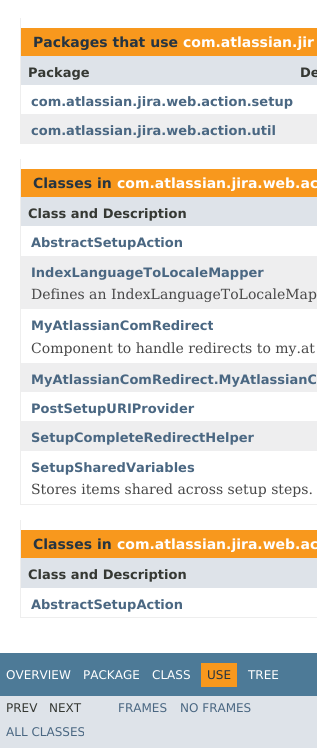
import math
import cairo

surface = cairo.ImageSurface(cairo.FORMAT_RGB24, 317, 748)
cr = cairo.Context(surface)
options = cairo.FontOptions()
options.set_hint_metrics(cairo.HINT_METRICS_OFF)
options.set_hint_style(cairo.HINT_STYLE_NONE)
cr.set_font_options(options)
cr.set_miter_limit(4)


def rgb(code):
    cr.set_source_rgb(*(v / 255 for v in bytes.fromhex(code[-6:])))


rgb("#ffffff")
cr.paint()
for x, y, w, h, color in [
    (20, 143, 297, 1, "#eeeeee"),
    (20, 18, 1, 126, "#eeeeee"),
    (21, 28, 296, 28, "#f8981d"),
    (21, 56, 296, 29, "#dee3e9"),
    (21, 114, 296, 29, "#eeeeef"),
    (20, 504, 297, 1, "#eeeeee"),
    (20, 159, 1, 346, "#eeeeee"),
    (21, 169, 296, 28, "#f8981d"),
    (21, 197, 296, 29, "#dee3e9"),
    (21, 256, 296, 53, "#eeeeef"),
    (21, 363, 296, 29, "#eeeeef"),
    (21, 421, 296, 30, "#eeeeef"),
    (20, 617, 297, 1, "#eeeeee"),
    (20, 520, 1, 98, "#eeeeee"),
    (21, 530, 296, 28, "#f8981d"),
    (21, 558, 296, 30, "#dee3e9"),
    (0, 653, 317, 43, "#4d7a97"),
    (201, 663, 36, 24, "#f8981d"),
    (0, 696, 317, 52, "#dee3e9"),
]:
    rgb(color)
    cr.rectangle(x, y, w, h)
    cr.fill()
cr.select_font_face("DejaVu Sans", cairo.FONT_SLANT_NORMAL, cairo.FONT_WEIGHT_BOLD)
cr.set_font_size(14)
rgb("#253441")
cr.move_to(33, 47)
cr.show_text("Packages that use")
rgb("#ffffff")
cr.move_to(183, 47)
cr.show_text("com.atlassian.jir")
cr.set_font_size(13)
rgb("#353833")
cr.move_to(28, 77)
cr.show_text("Package")
cr.move_to(300, 77)
cr.show_text("De")
rgb("#4a6782")
cr.move_to(31, 106)
cr.show_text("com.atlassian.jira.web.action.setup")
cr.move_to(31, 135)
cr.show_text("com.atlassian.jira.web.action.util")
cr.set_font_size(14)
rgb("#253441")
cr.move_to(33, 188)
cr.show_text("Classes in")
rgb("#ffffff")
cr.move_to(117, 188)
cr.show_text("com.atlassian.jira.web.ac")
cr.set_font_size(13)
rgb("#353833")
cr.move_to(28, 218)
cr.show_text("Class and Description")
rgb("#4a6782")
cr.move_to(31, 247)
cr.show_text("AbstractSetupAction")
cr.move_to(31, 277)
cr.show_text("IndexLanguageToLocaleMapper")
cr.select_font_face("DejaVu Serif")
cr.set_font_size(14)
rgb("#474747")
cr.move_to(31, 299)
cr.show_text("Defines an IndexLanguageToLocaleMap")
cr.select_font_face("DejaVu Sans", cairo.FONT_SLANT_NORMAL, cairo.FONT_WEIGHT_BOLD)
cr.set_font_size(13)
rgb("#4a6782")
cr.move_to(31, 330)
cr.show_text("MyAtlassianComRedirect")
cr.select_font_face("DejaVu Serif")
cr.set_font_size(14)
rgb("#474747")
cr.move_to(31, 353)
cr.show_text("Component to handle redirects to my.at")
cr.select_font_face("DejaVu Sans", cairo.FONT_SLANT_NORMAL, cairo.FONT_WEIGHT_BOLD)
cr.set_font_size(13)
rgb("#4a6782")
for x, y, s in [
    (31, 384, "MyAtlassianComRedirect.MyAtlassianC"),
    (31, 413, "PostSetupURIProvider"),
    (31, 442, "SetupCompleteRedirectHelper"),
    (31, 472, "SetupSharedVariables"),
]:
    cr.move_to(x, y)
    cr.show_text(s)
cr.select_font_face("DejaVu Serif")
cr.set_font_size(14)
rgb("#474747")
cr.move_to(31, 494)
cr.show_text("Stores items shared across setup steps.")
cr.select_font_face("DejaVu Sans", cairo.FONT_SLANT_NORMAL, cairo.FONT_WEIGHT_BOLD)
rgb("#253441")
cr.move_to(33, 549)
cr.show_text("Classes in")
rgb("#ffffff")
cr.move_to(117, 549)
cr.show_text("com.atlassian.jira.web.ac")
cr.set_font_size(13)
rgb("#353833")
cr.move_to(28, 579)
cr.show_text("Class and Description")
rgb("#4a6782")
cr.move_to(31, 609)
cr.show_text("AbstractSetupAction")
cr.select_font_face("DejaVu Sans")
cr.set_font_size(12)
rgb("#ffffff")
for x, y, s in [
    (6, 679, "OVERVIEW"),
    (83, 679, "PACKAGE"),
    (152, 679, "CLASS"),
]:
    cr.move_to(x, y)
    cr.show_text(s)
rgb("#253441")
cr.move_to(207, 679)
cr.show_text("USE")
rgb("#ffffff")
cr.move_to(248, 679)
cr.show_text("TREE")
rgb("#353833")
cr.move_to(6, 712)
cr.show_text("PREV")
cr.move_to(49, 712)
cr.show_text("NEXT")
rgb("#4a6782")
for x, y, s in [
    (118, 712, "FRAMES"),
    (180, 712, "NO FRAMES"),
    (6, 736, "ALL CLASSES"),
]:
    cr.move_to(x, y)
    cr.show_text(s)
surface.write_to_png("page.png")
